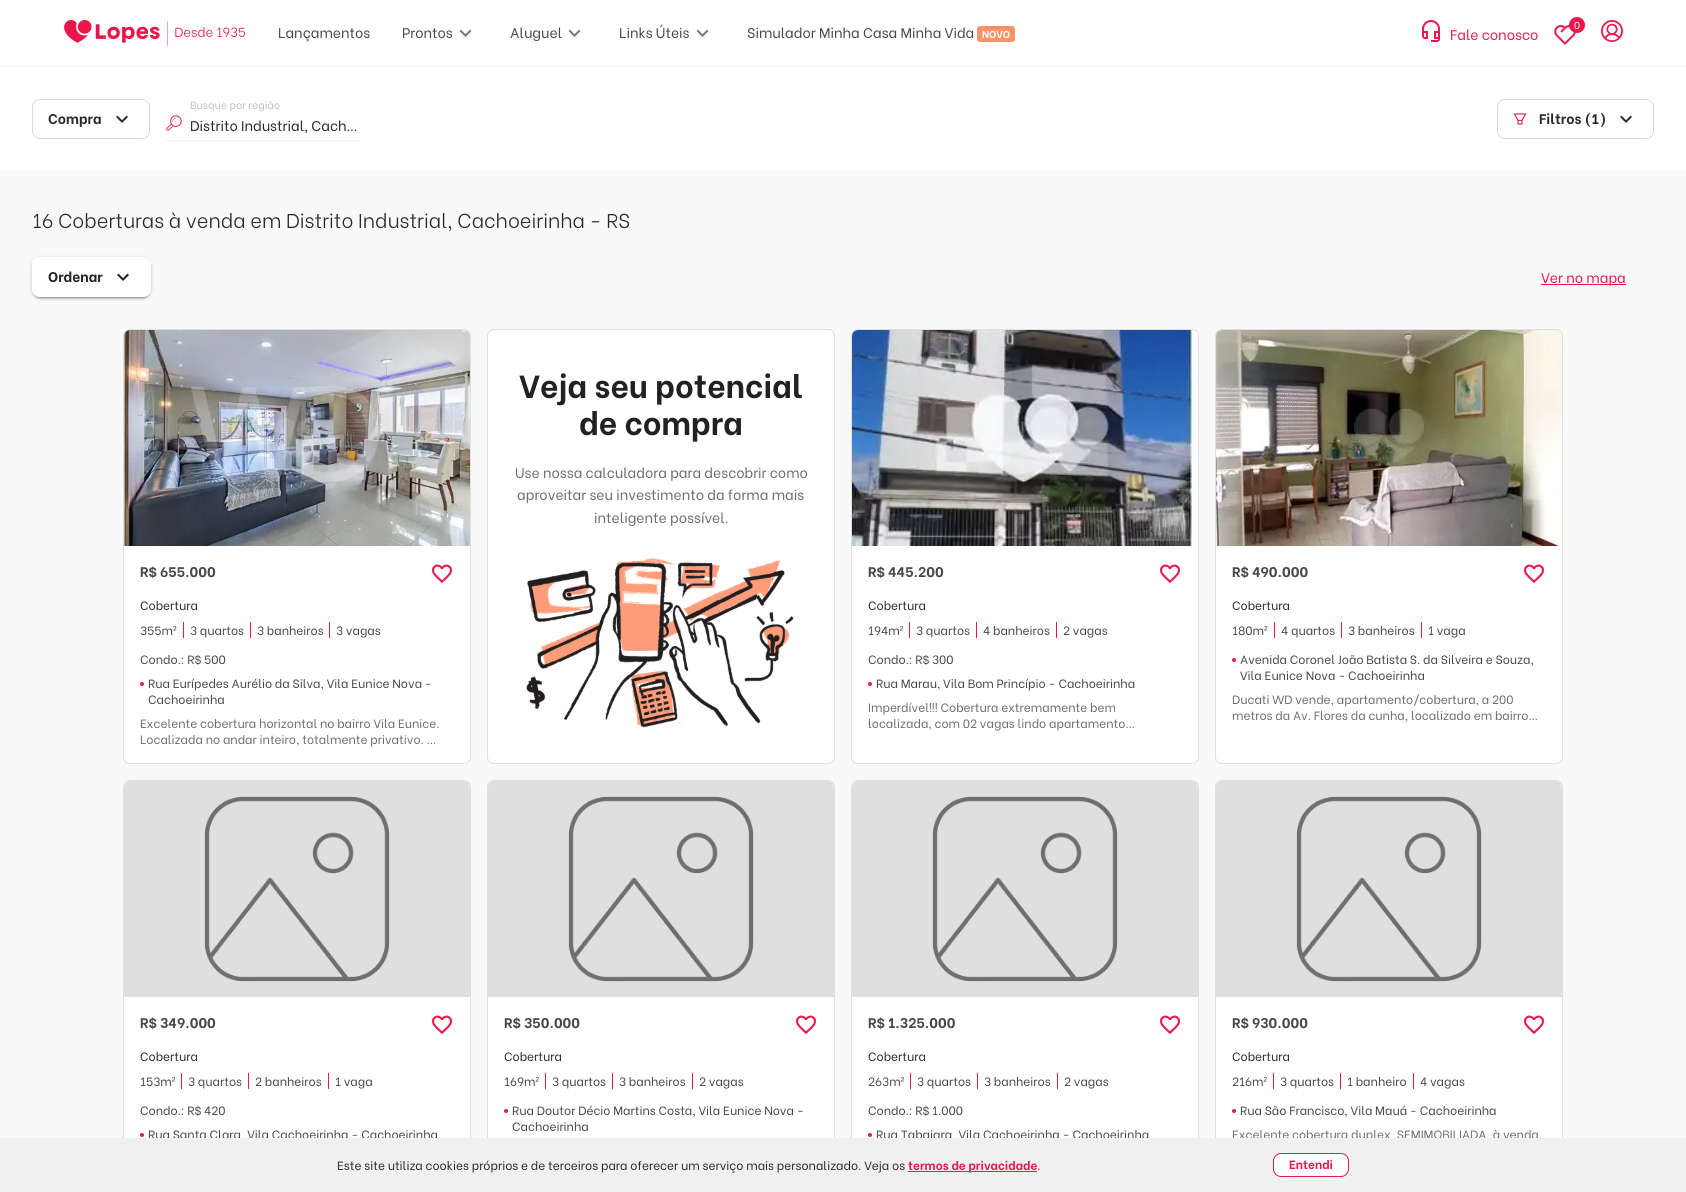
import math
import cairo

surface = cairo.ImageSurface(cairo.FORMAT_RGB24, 1686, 1192)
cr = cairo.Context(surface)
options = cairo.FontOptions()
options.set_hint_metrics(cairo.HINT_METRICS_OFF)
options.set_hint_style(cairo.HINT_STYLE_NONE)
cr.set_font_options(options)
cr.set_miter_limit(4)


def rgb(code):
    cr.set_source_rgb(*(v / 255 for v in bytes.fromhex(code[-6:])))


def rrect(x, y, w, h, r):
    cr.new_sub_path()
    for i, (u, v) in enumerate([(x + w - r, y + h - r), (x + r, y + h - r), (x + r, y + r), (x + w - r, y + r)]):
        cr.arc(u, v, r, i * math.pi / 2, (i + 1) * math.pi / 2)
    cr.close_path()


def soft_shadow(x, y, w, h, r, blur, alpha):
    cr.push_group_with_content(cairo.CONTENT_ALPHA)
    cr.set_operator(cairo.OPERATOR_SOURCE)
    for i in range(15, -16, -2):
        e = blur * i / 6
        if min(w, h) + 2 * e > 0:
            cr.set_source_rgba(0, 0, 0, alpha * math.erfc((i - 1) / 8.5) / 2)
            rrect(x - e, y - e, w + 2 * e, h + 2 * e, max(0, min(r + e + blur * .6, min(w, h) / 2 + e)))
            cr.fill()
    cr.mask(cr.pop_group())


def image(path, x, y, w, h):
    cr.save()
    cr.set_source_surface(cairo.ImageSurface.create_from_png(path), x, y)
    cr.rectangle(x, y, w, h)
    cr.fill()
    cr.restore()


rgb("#ffffff")
cr.paint()
rgb("#f2f2f2")
cr.rectangle(0, 66, 1686, 1)
cr.fill()
image("img/1.png", 64, 20, 181, 26)
image("img/2.png", 459, 29, 13, 8)
image("img/2.png", 568, 29, 13, 8)
image("img/2.png", 696, 29, 13, 8)
rgb("#ff9169")
rrect(977, 26, 38, 16, 3)
cr.fill()
image("img/3.png", 1422, 20, 18, 22)
image("img/4.png", 1554, 25, 22, 20)
rgb("#eb194b")
cr.arc(1577, 25, 8, 0, 2 * math.pi)
cr.fill()
image("img/5.png", 1601, 20, 22, 22)
rrect(32.5, 99.5, 117, 39, 7.5)
rgb("#dbdbdb")
cr.set_line_width(1)
cr.stroke()
image("img/6.png", 116, 115, 12, 8)
image("img/7.png", 166, 115, 16, 16)
rgb("#f2f2f2")
cr.rectangle(166, 140, 194, 1)
cr.fill()
rrect(1497.5, 99.5, 156, 39, 7.5)
rgb("#dbdbdb")
cr.stroke()
image("img/8.png", 1513, 113, 14, 12)
image("img/6.png", 1620, 115, 12, 8)
rgb("#f9f9f9")
cr.rectangle(0, 171, 1686, 967)
cr.fill()
rgb("#000000")
soft_shadow(32, 258, 119, 40, 8, 2.5, 0.12)
soft_shadow(32, 259, 119, 40, 8, 1, 0.14)
soft_shadow(34, 262, 115, 36, 6, 0.5, 0.2)
rgb("#ffffff")
rrect(32, 257, 119, 40, 8)
cr.fill()
image("img/9.png", 117, 273, 12, 8)
rgb("#eb194b")
cr.rectangle(1541, 284, 85, 1)
cr.fill()
rgb("#ffffff")
rrect(487.5, 329.5, 347, 434, 6.5)
cr.fill_preserve()
rgb("#dfdfdf")
cr.stroke()
image("img/10.png", 526, 558, 268, 170)
rgb("#ffffff")
rrect(123.5, 329.5, 347, 434, 6.5)
cr.fill_preserve()
rgb("#dfdfdf")
cr.stroke()
image("img/11.png", 124, 330, 346, 216)
image("img/12.png", 431, 564, 21, 19)
for x, y, w, h, color in [
    (183, 622, 1, 16, "#eb194b"),
    (250, 622, 1, 16, "#eb194b"),
    (329, 622, 1, 16, "#eb194b"),
]:
    rgb(color)
    cr.rectangle(x, y, w, h)
    cr.fill()
cr.arc(142, 684, 2, 0, 2 * math.pi)
cr.fill()
rgb("#ffffff")
rrect(851.5, 329.5, 347, 434, 6.5)
cr.fill_preserve()
rgb("#dfdfdf")
cr.stroke()
image("img/13.png", 852, 330, 346, 216)
image("img/12.png", 1159, 564, 21, 19)
for x, y, w, h, color in [
    (909, 622, 1, 16, "#eb194b"),
    (976, 622, 1, 16, "#eb194b"),
    (1056, 622, 1, 16, "#eb194b"),
]:
    rgb(color)
    cr.rectangle(x, y, w, h)
    cr.fill()
cr.arc(870, 684, 2, 0, 2 * math.pi)
cr.fill()
rgb("#ffffff")
rrect(1215.5, 329.5, 347, 434, 6.5)
cr.fill_preserve()
rgb("#dfdfdf")
cr.stroke()
image("img/14.png", 1216, 330, 346, 216)
image("img/12.png", 1523, 564, 21, 19)
for x, y, w, h, color in [
    (1274, 622, 1, 16, "#eb194b"),
    (1341, 622, 1, 16, "#eb194b"),
    (1421, 622, 1, 16, "#eb194b"),
]:
    rgb(color)
    cr.rectangle(x, y, w, h)
    cr.fill()
cr.arc(1234, 660, 2, 0, 2 * math.pi)
cr.fill()
rgb("#ffffff")
cr.new_path()
cr.move_to(130, 780)
cr.line_to(464, 780)
cr.curve_to(468, 780, 471, 783, 471, 787)
cr.line_to(471, 1192)
cr.line_to(123, 1192)
cr.line_to(123, 787)
cr.curve_to(123, 783, 126, 780, 130, 780)
cr.close_path()
cr.fill()
rrect(123.5, 780.5, 347, 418, 6.5)
rgb("#dfdfdf")
cr.stroke()
cr.new_path()
cr.move_to(130, 781)
cr.line_to(464, 781)
cr.curve_to(467.5, 781, 470, 783.5, 470, 787)
cr.line_to(470, 997)
cr.line_to(124, 997)
cr.line_to(124, 787)
cr.curve_to(124, 783.5, 126.5, 781, 130, 781)
cr.close_path()
cr.fill()
image("img/15.png", 204, 796, 186, 186)
image("img/12.png", 431, 1015, 21, 19)
for x, y, w, h, color in [
    (181, 1073, 1, 16, "#eb194b"),
    (248, 1073, 1, 16, "#eb194b"),
    (328, 1073, 1, 16, "#eb194b"),
]:
    rgb(color)
    cr.rectangle(x, y, w, h)
    cr.fill()
cr.arc(142, 1135, 2, 0, 2 * math.pi)
cr.fill()
rgb("#ffffff")
cr.new_path()
cr.move_to(494, 780)
cr.line_to(828, 780)
cr.curve_to(832, 780, 835, 783, 835, 787)
cr.line_to(835, 1192)
cr.line_to(487, 1192)
cr.line_to(487, 787)
cr.curve_to(487, 783, 490, 780, 494, 780)
cr.close_path()
cr.fill()
rrect(487.5, 780.5, 347, 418, 6.5)
rgb("#dfdfdf")
cr.stroke()
cr.new_path()
cr.move_to(494, 781)
cr.line_to(828, 781)
cr.curve_to(831.5, 781, 834, 783.5, 834, 787)
cr.line_to(834, 997)
cr.line_to(488, 997)
cr.line_to(488, 787)
cr.curve_to(488, 783.5, 490.5, 781, 494, 781)
cr.close_path()
cr.fill()
image("img/16.png", 568, 796, 186, 186)
image("img/12.png", 795, 1015, 21, 19)
for x, y, w, h, color in [
    (545, 1073, 1, 16, "#eb194b"),
    (612, 1073, 1, 16, "#eb194b"),
    (692, 1073, 1, 16, "#eb194b"),
]:
    rgb(color)
    cr.rectangle(x, y, w, h)
    cr.fill()
cr.arc(506, 1111, 2, 0, 2 * math.pi)
cr.fill()
rgb("#ffffff")
cr.new_path()
cr.move_to(858, 780)
cr.line_to(1192, 780)
cr.curve_to(1196, 780, 1199, 783, 1199, 787)
cr.line_to(1199, 1192)
cr.line_to(851, 1192)
cr.line_to(851, 787)
cr.curve_to(851, 783, 854, 780, 858, 780)
cr.close_path()
cr.fill()
rrect(851.5, 780.5, 347, 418, 6.5)
rgb("#dfdfdf")
cr.stroke()
cr.new_path()
cr.move_to(858, 781)
cr.line_to(1192, 781)
cr.curve_to(1195.5, 781, 1198, 783.5, 1198, 787)
cr.line_to(1198, 997)
cr.line_to(852, 997)
cr.line_to(852, 787)
cr.curve_to(852, 783.5, 854.5, 781, 858, 781)
cr.close_path()
cr.fill()
image("img/17.png", 932, 796, 186, 186)
image("img/12.png", 1159, 1015, 21, 19)
for x, y, w, h, color in [
    (910, 1073, 1, 16, "#eb194b"),
    (977, 1073, 1, 16, "#eb194b"),
    (1057, 1073, 1, 16, "#eb194b"),
]:
    rgb(color)
    cr.rectangle(x, y, w, h)
    cr.fill()
cr.arc(870, 1135, 2, 0, 2 * math.pi)
cr.fill()
rgb("#ffffff")
cr.new_path()
cr.move_to(1222, 780)
cr.line_to(1556, 780)
cr.curve_to(1560, 780, 1563, 783, 1563, 787)
cr.line_to(1563, 1192)
cr.line_to(1215, 1192)
cr.line_to(1215, 787)
cr.curve_to(1215, 783, 1218, 780, 1222, 780)
cr.close_path()
cr.fill()
rrect(1215.5, 780.5, 347, 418, 6.5)
rgb("#dfdfdf")
cr.stroke()
cr.new_path()
cr.move_to(1222, 781)
cr.line_to(1556, 781)
cr.curve_to(1559.5, 781, 1562, 783.5, 1562, 787)
cr.line_to(1562, 997)
cr.line_to(1216, 997)
cr.line_to(1216, 787)
cr.curve_to(1216, 783.5, 1218.5, 781, 1222, 781)
cr.close_path()
cr.fill()
image("img/16.png", 1296, 796, 186, 186)
image("img/12.png", 1523, 1015, 21, 19)
for x, y, w, h, color in [
    (1273, 1073, 1, 16, "#eb194b"),
    (1340, 1073, 1, 16, "#eb194b"),
    (1413, 1073, 1, 16, "#eb194b"),
]:
    rgb(color)
    cr.rectangle(x, y, w, h)
    cr.fill()
cr.arc(1234, 1111, 2, 0, 2 * math.pi)
cr.fill()
cr.select_font_face("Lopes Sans")
cr.set_font_size(14)
rgb("#484848")
for x, y, s in [
    (278, 38, "Lançamentos"),
    (402, 38, "Prontos"),
    (510, 38, "Aluguel"),
    (619, 38, "Links Úteis"),
    (747, 38, "Simulador Minha Casa Minha Vida"),
]:
    cr.move_to(x, y)
    cr.show_text(s)
cr.select_font_face("Lopes Sans", cairo.FONT_SLANT_NORMAL, cairo.FONT_WEIGHT_BOLD)
cr.set_font_size(10)
rgb("#ffffff")
cr.move_to(982, 38)
cr.show_text("NOVO")
cr.select_font_face("Lopes Sans")
cr.set_font_size(14)
rgb("#eb194b")
cr.move_to(1450, 40)
cr.show_text("Fale conosco")
cr.set_font_size(10)
rgb("#ffffff")
cr.move_to(1574, 29)
cr.show_text("0")
cr.select_font_face("Lopes Sans", cairo.FONT_SLANT_NORMAL, cairo.FONT_WEIGHT_BOLD)
cr.set_font_size(14)
rgb("#2a2a2a")
cr.move_to(48, 124)
cr.show_text("Compra")
cr.select_font_face("Lopes Sans")
cr.set_font_size(10.5)
rgb("#bfbfbf")
cr.move_to(190, 109)
cr.show_text("Busque por região")
cr.set_font_size(14)
rgb("#2a2a2a")
cr.move_to(190, 131)
cr.show_text("Distrito Industrial, Cach…")
cr.select_font_face("Lopes Sans", cairo.FONT_SLANT_NORMAL, cairo.FONT_WEIGHT_BOLD)
cr.move_to(1539, 124)
cr.show_text("Filtros (1)")
cr.select_font_face("Lopes Sans Light")
cr.set_font_size(20)
cr.move_to(32, 228)
cr.show_text("16 Coberturas à venda em Distrito Industrial, Cachoeirinha - RS")
cr.select_font_face("Lopes Sans", cairo.FONT_SLANT_NORMAL, cairo.FONT_WEIGHT_BOLD)
cr.set_font_size(14)
rgb("#212121")
cr.move_to(48, 282)
cr.show_text("Ordenar")
cr.select_font_face("Lopes Sans")
rgb("#eb194b")
cr.move_to(1541, 283)
cr.show_text("Ver no mapa")
cr.select_font_face("Lopes Sans", cairo.FONT_SLANT_NORMAL, cairo.FONT_WEIGHT_BOLD)
cr.set_font_size(32)
rgb("#212121")
cr.move_to(519, 398)
cr.show_text("Veja seu potencial")
cr.move_to(579, 435)
cr.show_text("de compra")
cr.select_font_face("Lopes Sans")
cr.set_font_size(14)
rgb("#6d6d6d")
for x, y, s in [
    (515, 478, "Use nossa calculadora para descobrir como"),
    (517, 500, "aproveitar seu investimento da forma mais"),
    (594, 523, "inteligente possível."),
]:
    cr.move_to(x, y)
    cr.show_text(s)
cr.select_font_face("Lopes Sans", cairo.FONT_SLANT_NORMAL, cairo.FONT_WEIGHT_BOLD)
rgb("#484848")
cr.move_to(140, 577)
cr.show_text("R$ 655.000")
cr.select_font_face("Lopes Sans")
cr.set_font_size(12)
rgb("#242f2d")
cr.move_to(140, 610)
cr.show_text("Cobertura")
rgb("#484848")
for x, y, s in [
    (140, 635, "355m²"),
    (190, 635, "3 quartos"),
    (257, 635, "3 banheiros"),
    (336, 635, "3 vagas"),
    (140, 664, "Condo.: R$ 500"),
    (148, 688, "Rua Eurípedes Aurélio da Silva, Vila Eunice Nova -"),
    (148, 704, "Cachoeirinha"),
]:
    cr.move_to(x, y)
    cr.show_text(s)
rgb("#6d6d6d")
cr.move_to(140, 728)
cr.show_text("Excelente cobertura horizontal no bairro Vila Eunice.")
cr.move_to(140, 744)
cr.show_text("Localizada no andar inteiro, totalmente privativo. ...")
cr.select_font_face("Lopes Sans", cairo.FONT_SLANT_NORMAL, cairo.FONT_WEIGHT_BOLD)
cr.set_font_size(14)
rgb("#484848")
cr.move_to(868, 577)
cr.show_text("R$ 445.200")
cr.select_font_face("Lopes Sans")
cr.set_font_size(12)
rgb("#242f2d")
cr.move_to(868, 610)
cr.show_text("Cobertura")
rgb("#484848")
for x, y, s in [
    (868, 635, "194m²"),
    (916, 635, "3 quartos"),
    (983, 635, "4 banheiros"),
    (1063, 635, "2 vagas"),
    (868, 664, "Condo.: R$ 300"),
    (876, 688, "Rua Marau, Vila Bom Princípio - Cachoeirinha"),
]:
    cr.move_to(x, y)
    cr.show_text(s)
rgb("#6d6d6d")
cr.move_to(868, 712)
cr.show_text("Imperdível!!! Cobertura extremamente bem")
cr.move_to(868, 728)
cr.show_text("localizada, com 02 vagas lindo apartamento…")
cr.select_font_face("Lopes Sans", cairo.FONT_SLANT_NORMAL, cairo.FONT_WEIGHT_BOLD)
cr.set_font_size(14)
rgb("#484848")
cr.move_to(1232, 577)
cr.show_text("R$ 490.000")
cr.select_font_face("Lopes Sans")
cr.set_font_size(12)
rgb("#242f2d")
cr.move_to(1232, 610)
cr.show_text("Cobertura")
rgb("#484848")
for x, y, s in [
    (1232, 635, "180m²"),
    (1281, 635, "4 quartos"),
    (1348, 635, "3 banheiros"),
    (1428, 635, "1 vaga"),
    (1240, 664, "Avenida Coronel João Batista S. da Silveira e Souza,"),
    (1240, 680, "Vila Eunice Nova - Cachoeirinha"),
]:
    cr.move_to(x, y)
    cr.show_text(s)
rgb("#6d6d6d")
cr.move_to(1232, 704)
cr.show_text("Ducati WD vende, apartamento/cobertura, a 200")
cr.move_to(1232, 720)
cr.show_text("metros da Av. Flores da cunha, localizado em bairro…")
cr.select_font_face("Lopes Sans", cairo.FONT_SLANT_NORMAL, cairo.FONT_WEIGHT_BOLD)
cr.set_font_size(14)
rgb("#484848")
cr.move_to(140, 1028)
cr.show_text("R$ 349.000")
cr.select_font_face("Lopes Sans")
cr.set_font_size(12)
rgb("#242f2d")
cr.move_to(140, 1061)
cr.show_text("Cobertura")
rgb("#484848")
for x, y, s in [
    (140, 1086, "153m²"),
    (188, 1086, "3 quartos"),
    (255, 1086, "2 banheiros"),
    (335, 1086, "1 vaga"),
    (140, 1115, "Condo.: R$ 420"),
    (148, 1139, "Rua Santa Clara, Vila Cachoeirinha - Cachoeirinha"),
]:
    cr.move_to(x, y)
    cr.show_text(s)
cr.select_font_face("Lopes Sans", cairo.FONT_SLANT_NORMAL, cairo.FONT_WEIGHT_BOLD)
cr.set_font_size(14)
cr.move_to(504, 1028)
cr.show_text("R$ 350.000")
cr.select_font_face("Lopes Sans")
cr.set_font_size(12)
rgb("#242f2d")
cr.move_to(504, 1061)
cr.show_text("Cobertura")
rgb("#484848")
for x, y, s in [
    (504, 1086, "169m²"),
    (552, 1086, "3 quartos"),
    (619, 1086, "3 banheiros"),
    (699, 1086, "2 vagas"),
    (512, 1115, "Rua Doutor Décio Martins Costa, Vila Eunice Nova -"),
    (512, 1131, "Cachoeirinha"),
]:
    cr.move_to(x, y)
    cr.show_text(s)
cr.select_font_face("Lopes Sans", cairo.FONT_SLANT_NORMAL, cairo.FONT_WEIGHT_BOLD)
cr.set_font_size(14)
cr.move_to(868, 1028)
cr.show_text("R$ 1.325.000")
cr.select_font_face("Lopes Sans")
cr.set_font_size(12)
rgb("#242f2d")
cr.move_to(868, 1061)
cr.show_text("Cobertura")
rgb("#484848")
for x, y, s in [
    (868, 1086, "263m²"),
    (917, 1086, "3 quartos"),
    (984, 1086, "3 banheiros"),
    (1064, 1086, "2 vagas"),
    (868, 1115, "Condo.: R$ 1.000"),
    (876, 1139, "Rua Tabajara, Vila Cachoeirinha - Cachoeirinha"),
]:
    cr.move_to(x, y)
    cr.show_text(s)
cr.select_font_face("Lopes Sans", cairo.FONT_SLANT_NORMAL, cairo.FONT_WEIGHT_BOLD)
cr.set_font_size(14)
cr.move_to(1232, 1028)
cr.show_text("R$ 930.000")
cr.select_font_face("Lopes Sans")
cr.set_font_size(12)
rgb("#242f2d")
cr.move_to(1232, 1061)
cr.show_text("Cobertura")
rgb("#484848")
for x, y, s in [
    (1232, 1086, "216m²"),
    (1280, 1086, "3 quartos"),
    (1347, 1086, "1 banheiro"),
    (1420, 1086, "4 vagas"),
    (1240, 1115, "Rua São Francisco, Vila Mauá - Cachoeirinha"),
]:
    cr.move_to(x, y)
    cr.show_text(s)
rgb("#6d6d6d")
cr.move_to(1232, 1139)
cr.show_text("Excelente cobertura duplex, SEMIMOBILIADA, à venda")
rgb("#f0f0f0")
cr.rectangle(0, 1138, 1686, 54)
cr.fill()
rgb("#2a2a2a")
cr.move_to(337, 1170)
cr.show_text("Este site utiliza cookies próprios e de terceiros para oferecer um serviço mais personalizado. Veja os")
cr.move_to(1037, 1170)
cr.show_text(".")
rgb("#eb194b")
cr.rectangle(908, 1171, 129, 1)
cr.fill()
cr.select_font_face("Lopes Sans", cairo.FONT_SLANT_NORMAL, cairo.FONT_WEIGHT_BOLD)
cr.move_to(908, 1170)
cr.show_text("termos de privacidade")
rgb("#ffffff")
rrect(1273.5, 1153.5, 75, 23, 7.5)
cr.fill_preserve()
rgb("#eb194b")
cr.stroke()
cr.move_to(1289, 1169)
cr.show_text("Entendi")
surface.write_to_png("page.png")
